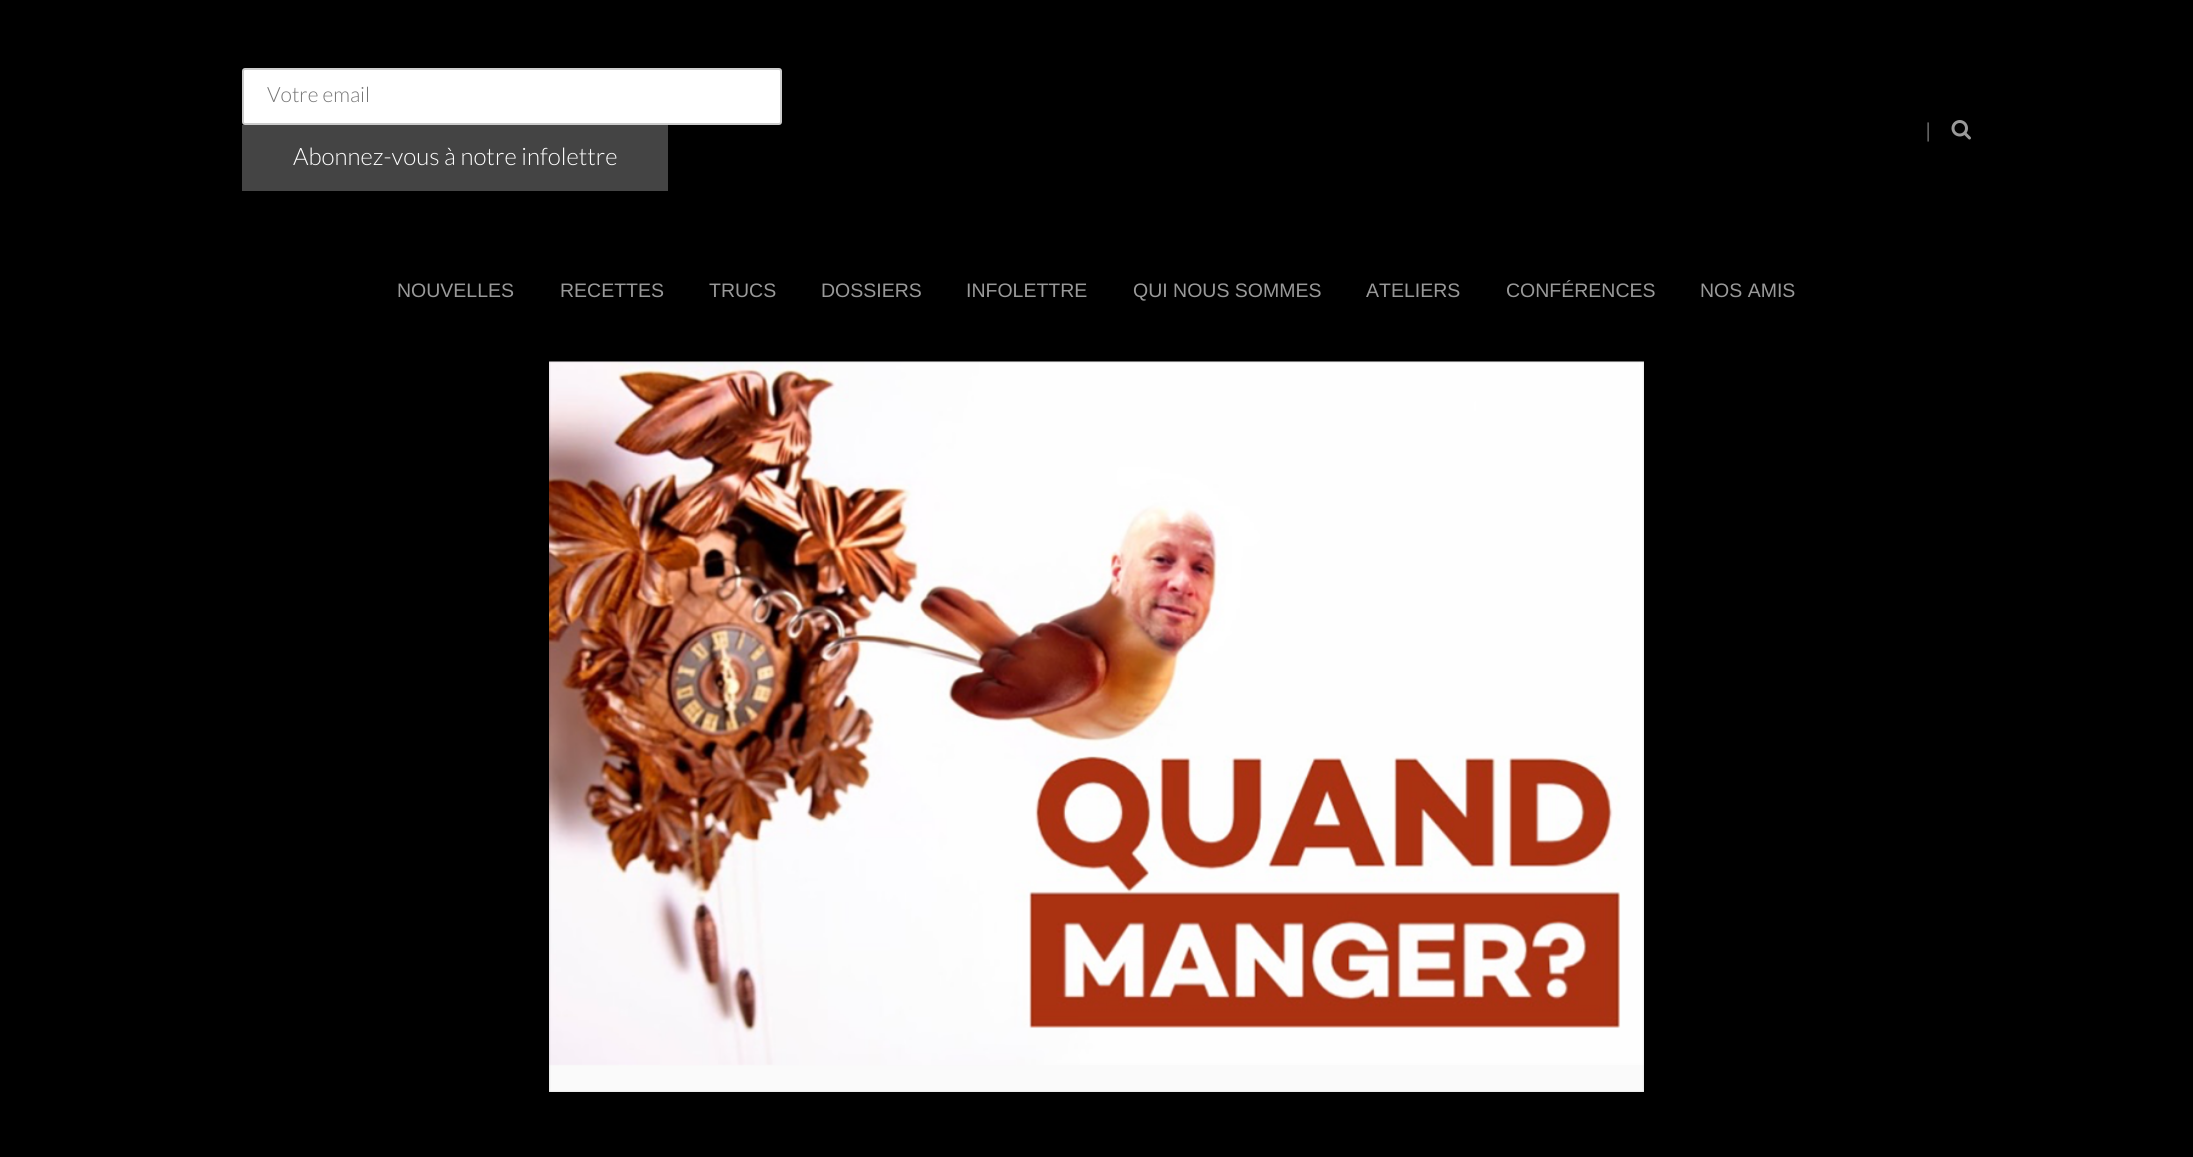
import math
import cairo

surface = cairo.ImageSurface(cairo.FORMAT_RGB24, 2193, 1157)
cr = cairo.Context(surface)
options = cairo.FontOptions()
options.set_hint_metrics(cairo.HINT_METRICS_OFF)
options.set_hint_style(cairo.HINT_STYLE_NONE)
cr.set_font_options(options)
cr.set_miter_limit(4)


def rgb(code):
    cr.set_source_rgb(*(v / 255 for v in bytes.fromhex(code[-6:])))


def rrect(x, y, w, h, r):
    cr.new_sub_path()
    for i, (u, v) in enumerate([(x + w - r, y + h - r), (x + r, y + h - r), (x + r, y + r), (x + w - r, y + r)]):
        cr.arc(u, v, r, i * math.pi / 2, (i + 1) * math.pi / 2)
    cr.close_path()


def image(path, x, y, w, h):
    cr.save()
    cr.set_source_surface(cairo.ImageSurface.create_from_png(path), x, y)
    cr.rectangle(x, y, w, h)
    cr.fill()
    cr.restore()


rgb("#000000")
cr.paint()
rgb("#ffffff")
rrect(243, 69, 538, 55, 2)
cr.fill_preserve()
rgb("#cccccc")
cr.stroke()
rgb("#444444")
cr.rectangle(242, 125, 426, 66)
cr.fill()
image("img/1.png", 1951, 120, 20, 20)
image("img/2.png", 549, 361, 1095, 731)
cr.select_font_face("Lato Light")
cr.set_font_size(21)
rgb("#757575")
cr.move_to(267, 102)
cr.show_text("Votre email")
cr.set_font_size(24)
rgb("#ffffff")
cr.move_to(293, 165)
cr.show_text("Abonnez-vous à notre infolettre")
cr.select_font_face("Liberation Serif")
cr.set_font_size(21)
rgb("#999999")
cr.move_to(1926, 137)
cr.show_text("|")
cr.select_font_face("Liberation Sans")
cr.set_font_size(19.5)
for x, y, s in [
    (397, 297, "NOUVELLES"),
    (560, 297, "RECETTES"),
    (709, 297, "TRUCS"),
    (821, 297, "DOSSIERS"),
    (966, 297, "INFOLETTRE"),
    (1133, 297, "QUI NOUS SOMMES"),
    (1366, 297, "ATELIERS"),
    (1506, 297, "CONFÉRENCES"),
    (1700, 297, "NOS AMIS"),
]:
    cr.move_to(x, y)
    cr.show_text(s)
surface.write_to_png("page.png")
